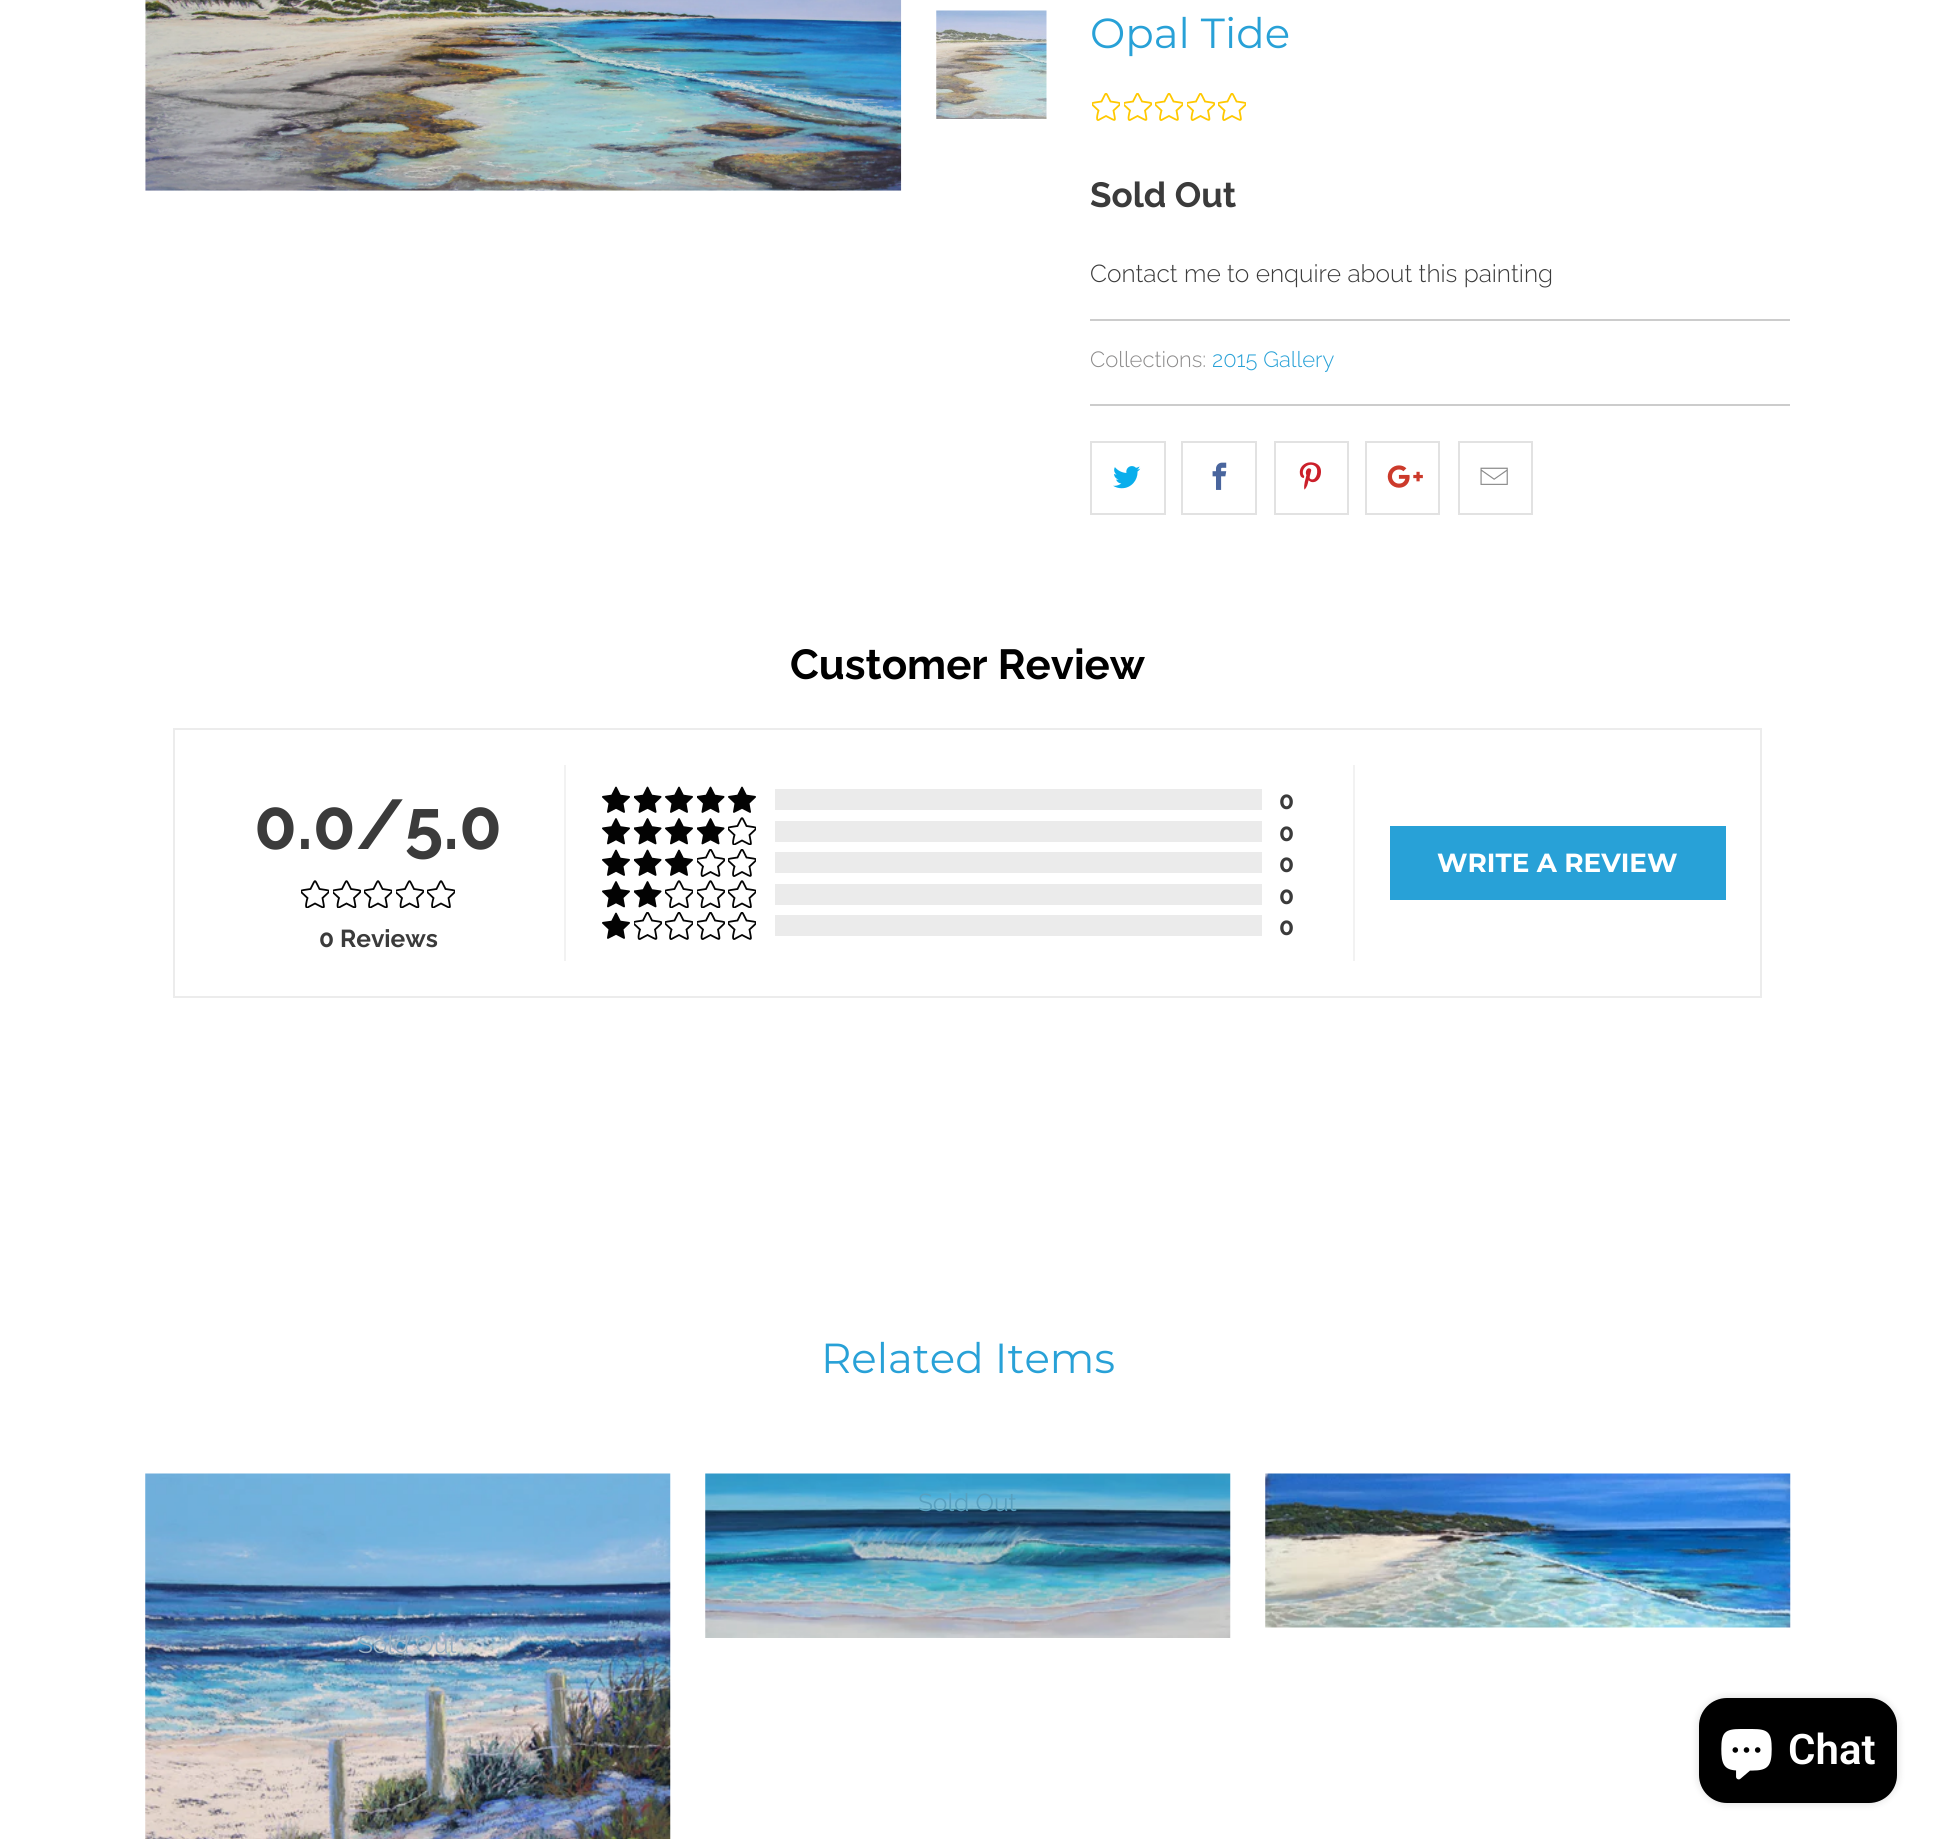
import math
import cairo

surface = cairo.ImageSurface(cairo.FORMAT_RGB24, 1934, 1839)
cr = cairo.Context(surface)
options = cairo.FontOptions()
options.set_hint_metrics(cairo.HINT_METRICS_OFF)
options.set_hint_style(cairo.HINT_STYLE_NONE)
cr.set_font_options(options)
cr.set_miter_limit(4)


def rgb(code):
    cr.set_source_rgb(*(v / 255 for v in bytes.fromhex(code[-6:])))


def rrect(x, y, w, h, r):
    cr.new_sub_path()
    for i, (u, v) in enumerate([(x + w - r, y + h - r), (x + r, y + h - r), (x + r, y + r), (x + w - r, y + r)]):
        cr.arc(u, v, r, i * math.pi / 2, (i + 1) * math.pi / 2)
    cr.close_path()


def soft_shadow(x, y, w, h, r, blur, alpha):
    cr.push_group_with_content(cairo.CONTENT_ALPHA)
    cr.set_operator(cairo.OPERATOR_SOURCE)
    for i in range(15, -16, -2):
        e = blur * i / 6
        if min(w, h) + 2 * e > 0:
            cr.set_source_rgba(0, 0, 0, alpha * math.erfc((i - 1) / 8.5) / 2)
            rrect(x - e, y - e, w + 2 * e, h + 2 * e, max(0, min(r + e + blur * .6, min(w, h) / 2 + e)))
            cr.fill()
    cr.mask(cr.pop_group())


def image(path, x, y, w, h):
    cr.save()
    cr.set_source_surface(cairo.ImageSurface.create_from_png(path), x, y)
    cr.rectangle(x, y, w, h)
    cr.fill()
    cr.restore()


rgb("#ffffff")
cr.paint()
image("img/1.png", 145, 0, 757, 191)
image("img/2.png", 936, 10, 111, 109)
cr.save()
cr.rectangle(1092, 93, 28, 28)
cr.clip()
cr.new_path()
cr.move_to(1098.5, 120)
cr.curve_to(1095.5, 121, 1098, 112, 1098.5, 110.5)
cr.curve_to(1089.5, 102, 1089, 103.5, 1101.5, 101.5)
cr.curve_to(1107, 91, 1105, 91, 1110.5, 101.5)
cr.curve_to(1123, 103.5, 1122.5, 102, 1113.5, 110.5)
cr.curve_to(1115.5, 122.5, 1117, 121.5, 1106, 116)
cr.close_path()
rgb("#ffc800")
cr.set_line_width(1.8)
cr.stroke()
cr.restore()
cr.save()
cr.rectangle(1124, 93, 28, 28)
cr.clip()
cr.new_path()
cr.move_to(1130, 120)
cr.curve_to(1127, 121, 1129.5, 112, 1130, 110.5)
cr.curve_to(1121, 102, 1120.5, 103.5, 1133, 101.5)
cr.curve_to(1138.5, 91, 1136.5, 91, 1142, 101.5)
cr.curve_to(1154.5, 103.5, 1154, 102, 1145, 110.5)
cr.curve_to(1147, 122.5, 1148.5, 121.5, 1137.5, 116)
cr.close_path()
rgb("#ffc800")
cr.set_line_width(1.8)
cr.stroke()
cr.restore()
cr.save()
cr.rectangle(1155, 93, 28, 28)
cr.clip()
cr.new_path()
cr.move_to(1161.5, 120)
cr.curve_to(1158.5, 121, 1161, 112, 1161.5, 110.5)
cr.curve_to(1152.5, 102, 1152, 103.5, 1164.5, 101.5)
cr.curve_to(1170, 91, 1168, 91, 1173.5, 101.5)
cr.curve_to(1186, 103.5, 1185.5, 102, 1176.5, 110.5)
cr.curve_to(1178.5, 122.5, 1180, 121.5, 1169, 116)
cr.close_path()
rgb("#ffc800")
cr.set_line_width(1.8)
cr.stroke()
cr.restore()
cr.save()
cr.rectangle(1187, 93, 28, 28)
cr.clip()
cr.new_path()
cr.move_to(1193, 120)
cr.curve_to(1190, 121, 1192.5, 112, 1193, 110.5)
cr.curve_to(1184, 102, 1183.5, 103.5, 1196, 101.5)
cr.curve_to(1201.5, 91, 1199.5, 91, 1205, 101.5)
cr.curve_to(1217.5, 103.5, 1217, 102, 1208, 110.5)
cr.curve_to(1210, 122.5, 1211.5, 121.5, 1200.5, 116)
cr.close_path()
rgb("#ffc800")
cr.set_line_width(1.8)
cr.stroke()
cr.restore()
cr.save()
cr.rectangle(1218, 93, 28, 28)
cr.clip()
cr.new_path()
cr.move_to(1224.5, 120)
cr.curve_to(1221.5, 121, 1224, 112, 1224.5, 110.5)
cr.curve_to(1215.5, 102, 1215, 103.5, 1227.5, 101.5)
cr.curve_to(1233, 91, 1231, 91, 1236.5, 101.5)
cr.curve_to(1249, 103.5, 1248.5, 102, 1239.5, 110.5)
cr.curve_to(1241.5, 122.5, 1243, 121.5, 1232, 116)
cr.close_path()
rgb("#ffc800")
cr.set_line_width(1.8)
cr.stroke()
cr.restore()
rgb("#cccccc")
cr.rectangle(1090, 319, 700, 2)
cr.fill()
cr.rectangle(1090, 404, 700, 2)
cr.fill()
cr.rectangle(1091, 442, 74, 72)
rgb("#e2e2e2")
cr.stroke()
image("img/3.png", 1113, 466, 28, 23)
cr.rectangle(1182, 442, 74, 72)
cr.stroke()
image("img/4.png", 1212, 462, 15, 28)
cr.rectangle(1275, 442, 73, 72)
cr.stroke()
image("img/5.png", 1299, 462, 22, 28)
cr.rectangle(1366, 442, 73, 72)
cr.stroke()
image("img/6.png", 1387, 465, 36, 23)
cr.rectangle(1459, 442, 73, 72)
cr.stroke()
image("img/7.png", 1480, 467, 28, 18)
cr.rectangle(174, 729, 1587, 268)
rgb("#ececec")
cr.stroke()
cr.save()
cr.rectangle(301, 880, 28, 28)
cr.clip()
cr.new_path()
cr.move_to(307.5, 907.5)
cr.curve_to(304.5, 908.5, 307, 899.5, 307.5, 898)
cr.curve_to(298.5, 889.5, 298, 891, 310.5, 889)
cr.curve_to(316, 878.5, 314, 878.5, 319.5, 889)
cr.curve_to(332, 891, 331.5, 889.5, 322.5, 898)
cr.curve_to(324.5, 910, 326, 909, 315, 903.5)
cr.close_path()
rgb("#030303")
cr.set_line_width(1.8)
cr.stroke()
cr.restore()
cr.save()
cr.rectangle(333, 880, 28, 28)
cr.clip()
cr.new_path()
cr.move_to(339, 907.5)
cr.curve_to(336, 908.5, 338.5, 899.5, 339, 898)
cr.curve_to(330, 889.5, 329.5, 891, 342, 889)
cr.curve_to(347.5, 878.5, 345.5, 878.5, 351, 889)
cr.curve_to(363.5, 891, 363, 889.5, 354, 898)
cr.curve_to(356, 910, 357.5, 909, 346.5, 903.5)
cr.close_path()
rgb("#030303")
cr.set_line_width(1.8)
cr.stroke()
cr.restore()
cr.save()
cr.rectangle(364, 880, 28, 28)
cr.clip()
cr.new_path()
cr.move_to(370.5, 907.5)
cr.curve_to(367.5, 908.5, 370, 899.5, 370.5, 898)
cr.curve_to(361.5, 889.5, 361, 891, 373.5, 889)
cr.curve_to(379, 878.5, 377, 878.5, 382.5, 889)
cr.curve_to(395, 891, 394.5, 889.5, 385.5, 898)
cr.curve_to(387.5, 910, 389, 909, 378, 903.5)
cr.close_path()
rgb("#030303")
cr.set_line_width(1.8)
cr.stroke()
cr.restore()
cr.save()
cr.rectangle(396, 880, 28, 28)
cr.clip()
cr.new_path()
cr.move_to(402, 907.5)
cr.curve_to(399, 908.5, 401.5, 899.5, 402, 898)
cr.curve_to(393, 889.5, 392.5, 891, 405, 889)
cr.curve_to(410.5, 878.5, 408.5, 878.5, 414, 889)
cr.curve_to(426.5, 891, 426, 889.5, 417, 898)
cr.curve_to(419, 910, 420.5, 909, 409.5, 903.5)
cr.close_path()
rgb("#030303")
cr.set_line_width(1.8)
cr.stroke()
cr.restore()
cr.save()
cr.rectangle(427, 880, 28, 28)
cr.clip()
cr.new_path()
cr.move_to(433.5, 907.5)
cr.curve_to(430.5, 908.5, 433, 899.5, 433.5, 898)
cr.curve_to(424.5, 889.5, 424, 891, 436.5, 889)
cr.curve_to(442, 878.5, 440, 878.5, 445.5, 889)
cr.curve_to(458, 891, 457.5, 889.5, 448.5, 898)
cr.curve_to(450.5, 910, 452, 909, 441, 903.5)
cr.close_path()
rgb("#030303")
cr.set_line_width(1.8)
cr.stroke()
cr.restore()
rgb("#f2f2f2")
cr.rectangle(1353, 765, 2, 196)
cr.fill()
cr.rectangle(564, 765, 2, 196)
cr.fill()
image("img/8.png", 602, 786, 28, 27)
image("img/9.png", 634, 786, 28, 27)
image("img/8.png", 665, 786, 28, 27)
image("img/9.png", 697, 786, 28, 27)
image("img/8.png", 728, 786, 28, 27)
rgb("#ebebeb")
cr.rectangle(775, 789, 487, 21)
cr.fill()
image("img/10.png", 602, 818, 28, 27)
image("img/11.png", 634, 818, 28, 27)
image("img/10.png", 665, 818, 28, 27)
image("img/11.png", 697, 818, 28, 27)
cr.save()
cr.rectangle(728, 817, 28, 28)
cr.clip()
cr.new_path()
cr.move_to(734.5, 844.5)
cr.curve_to(731.5, 845.5, 734, 836.5, 734.5, 835)
cr.curve_to(725.5, 826.5, 725, 828, 737.5, 826)
cr.curve_to(743, 815.5, 741, 815.5, 746.5, 826)
cr.curve_to(759, 828, 758.5, 826.5, 749.5, 835)
cr.curve_to(751.5, 847, 753, 846, 742, 840.5)
cr.close_path()
rgb("#030303")
cr.set_line_width(1.8)
cr.stroke()
cr.restore()
cr.rectangle(775, 821, 487, 21)
cr.fill()
image("img/8.png", 602, 849, 28, 27)
image("img/9.png", 634, 849, 28, 27)
image("img/8.png", 665, 849, 28, 27)
cr.save()
cr.rectangle(697, 849, 28, 28)
cr.clip()
cr.new_path()
cr.move_to(703, 876)
cr.curve_to(700, 877, 702.5, 868, 703, 866.5)
cr.curve_to(694, 858, 693.5, 859.5, 706, 857.5)
cr.curve_to(711.5, 847, 709.5, 847, 715, 857.5)
cr.curve_to(727.5, 859.5, 727, 858, 718, 866.5)
cr.curve_to(720, 878.5, 721.5, 877.5, 710.5, 872)
cr.close_path()
rgb("#030303")
cr.set_line_width(1.8)
cr.stroke()
cr.restore()
cr.save()
cr.rectangle(728, 849, 28, 28)
cr.clip()
cr.new_path()
cr.move_to(734.5, 876)
cr.curve_to(731.5, 877, 734, 868, 734.5, 866.5)
cr.curve_to(725.5, 858, 725, 859.5, 737.5, 857.5)
cr.curve_to(743, 847, 741, 847, 746.5, 857.5)
cr.curve_to(759, 859.5, 758.5, 858, 749.5, 866.5)
cr.curve_to(751.5, 878.5, 753, 877.5, 742, 872)
cr.close_path()
rgb("#030303")
cr.set_line_width(1.8)
cr.stroke()
cr.restore()
cr.rectangle(775, 852, 487, 21)
cr.fill()
image("img/10.png", 602, 881, 28, 27)
image("img/11.png", 634, 881, 28, 27)
cr.save()
cr.rectangle(665, 880, 28, 28)
cr.clip()
cr.new_path()
cr.move_to(671.5, 907.5)
cr.curve_to(668.5, 908.5, 671, 899.5, 671.5, 898)
cr.curve_to(662.5, 889.5, 662, 891, 674.5, 889)
cr.curve_to(680, 878.5, 678, 878.5, 683.5, 889)
cr.curve_to(696, 891, 695.5, 889.5, 686.5, 898)
cr.curve_to(688.5, 910, 690, 909, 679, 903.5)
cr.close_path()
rgb("#030303")
cr.set_line_width(1.8)
cr.stroke()
cr.restore()
cr.save()
cr.rectangle(697, 880, 28, 28)
cr.clip()
cr.new_path()
cr.move_to(703, 907.5)
cr.curve_to(700, 908.5, 702.5, 899.5, 703, 898)
cr.curve_to(694, 889.5, 693.5, 891, 706, 889)
cr.curve_to(711.5, 878.5, 709.5, 878.5, 715, 889)
cr.curve_to(727.5, 891, 727, 889.5, 718, 898)
cr.curve_to(720, 910, 721.5, 909, 710.5, 903.5)
cr.close_path()
rgb("#030303")
cr.set_line_width(1.8)
cr.stroke()
cr.restore()
cr.save()
cr.rectangle(728, 880, 28, 28)
cr.clip()
cr.new_path()
cr.move_to(734.5, 907.5)
cr.curve_to(731.5, 908.5, 734, 899.5, 734.5, 898)
cr.curve_to(725.5, 889.5, 725, 891, 737.5, 889)
cr.curve_to(743, 878.5, 741, 878.5, 746.5, 889)
cr.curve_to(759, 891, 758.5, 889.5, 749.5, 898)
cr.curve_to(751.5, 910, 753, 909, 742, 903.5)
cr.close_path()
rgb("#030303")
cr.set_line_width(1.8)
cr.stroke()
cr.restore()
cr.rectangle(775, 884, 487, 21)
cr.fill()
image("img/8.png", 602, 912, 28, 27)
cr.save()
cr.rectangle(634, 912, 28, 28)
cr.clip()
cr.new_path()
cr.move_to(640, 939)
cr.curve_to(637, 940, 639.5, 931, 640, 929.5)
cr.curve_to(631, 921, 630.5, 922.5, 643, 920.5)
cr.curve_to(648.5, 910, 646.5, 910, 652, 920.5)
cr.curve_to(664.5, 922.5, 664, 921, 655, 929.5)
cr.curve_to(657, 941.5, 658.5, 940.5, 647.5, 935)
cr.close_path()
rgb("#030303")
cr.set_line_width(1.8)
cr.stroke()
cr.restore()
cr.save()
cr.rectangle(665, 912, 28, 28)
cr.clip()
cr.new_path()
cr.move_to(671.5, 939)
cr.curve_to(668.5, 940, 671, 931, 671.5, 929.5)
cr.curve_to(662.5, 921, 662, 922.5, 674.5, 920.5)
cr.curve_to(680, 910, 678, 910, 683.5, 920.5)
cr.curve_to(696, 922.5, 695.5, 921, 686.5, 929.5)
cr.curve_to(688.5, 941.5, 690, 940.5, 679, 935)
cr.close_path()
rgb("#030303")
cr.set_line_width(1.8)
cr.stroke()
cr.restore()
cr.save()
cr.rectangle(697, 912, 28, 28)
cr.clip()
cr.new_path()
cr.move_to(703, 939)
cr.curve_to(700, 940, 702.5, 931, 703, 929.5)
cr.curve_to(694, 921, 693.5, 922.5, 706, 920.5)
cr.curve_to(711.5, 910, 709.5, 910, 715, 920.5)
cr.curve_to(727.5, 922.5, 727, 921, 718, 929.5)
cr.curve_to(720, 941.5, 721.5, 940.5, 710.5, 935)
cr.close_path()
rgb("#030303")
cr.set_line_width(1.8)
cr.stroke()
cr.restore()
cr.save()
cr.rectangle(728, 912, 28, 28)
cr.clip()
cr.new_path()
cr.move_to(734.5, 939)
cr.curve_to(731.5, 940, 734, 931, 734.5, 929.5)
cr.curve_to(725.5, 921, 725, 922.5, 737.5, 920.5)
cr.curve_to(743, 910, 741, 910, 746.5, 920.5)
cr.curve_to(759, 922.5, 758.5, 921, 749.5, 929.5)
cr.curve_to(751.5, 941.5, 753, 940.5, 742, 935)
cr.close_path()
rgb("#030303")
cr.set_line_width(1.8)
cr.stroke()
cr.restore()
cr.rectangle(775, 915, 487, 21)
cr.fill()
rgb("#28a1d7")
cr.rectangle(1390, 826, 336, 74)
cr.fill()
image("img/12.png", 705, 1473, 526, 165)
image("img/13.png", 1265, 1473, 526, 155)
image("img/14.png", 145, 1473, 526, 366)
rgb("#000000")
soft_shadow(1699, 1698, 198, 105, 28, 4.5, 0.15)
rgb("#000000")
rrect(1699, 1698, 198, 105, 28)
cr.fill()
image("img/15.png", 1721, 1729, 51, 51)
cr.select_font_face("Montserrat")
cr.set_font_size(42)
rgb("#28a1d7")
cr.move_to(1090, 48)
cr.show_text("Opal Tide")
cr.select_font_face("Raleway", cairo.FONT_SLANT_NORMAL, cairo.FONT_WEIGHT_BOLD)
cr.set_font_size(35)
rgb("#3b3b3b")
cr.move_to(1090, 207)
cr.show_text("Sold Out")
cr.select_font_face("Raleway Light")
cr.set_font_size(24.5)
cr.move_to(1090, 282)
cr.show_text("Contact me to enquire about this painting")
cr.set_font_size(22)
rgb("#8c8b8b")
cr.move_to(1090, 367)
cr.show_text("Collections:")
rgb("#28a1d7")
cr.move_to(1212, 367)
cr.show_text("2015 Gallery")
cr.select_font_face("Raleway", cairo.FONT_SLANT_NORMAL, cairo.FONT_WEIGHT_BOLD)
cr.set_font_size(42)
rgb("#000000")
cr.move_to(790, 679)
cr.show_text("Customer Review")
cr.set_font_size(70)
rgb("#3b3b3b")
cr.move_to(254, 849)
cr.show_text("0.0/5.0")
cr.set_font_size(24.5)
for x, y, s in [
    (319, 947, "0 Reviews"),
    (1279, 809, "0"),
    (1279, 841, "0"),
    (1279, 872, "0"),
    (1279, 904, "0"),
    (1279, 935, "0"),
]:
    cr.move_to(x, y)
    cr.show_text(s)
cr.select_font_face("Montserrat", cairo.FONT_SLANT_NORMAL, cairo.FONT_WEIGHT_BOLD)
cr.set_font_size(26.25)
rgb("#ffffff")
cr.move_to(1437, 872)
cr.show_text("WRITE A REVIEW")
cr.select_font_face("Montserrat")
cr.set_font_size(42)
rgb("#28a1d7")
cr.move_to(821, 1373)
cr.show_text("Related Items")
cr.select_font_face("Raleway")
cr.set_font_size(24.5)
rgb("#58a0bf")
cr.move_to(918, 1511)
cr.show_text("Sold Out")
rgb("#96adc1")
cr.move_to(358, 1653)
cr.show_text("Sold Out")
cr.select_font_face("Roboto SemiBold")
cr.set_font_size(42)
rgb("#ffffff")
cr.move_to(1788, 1764)
cr.show_text("Chat")
surface.write_to_png("page.png")
